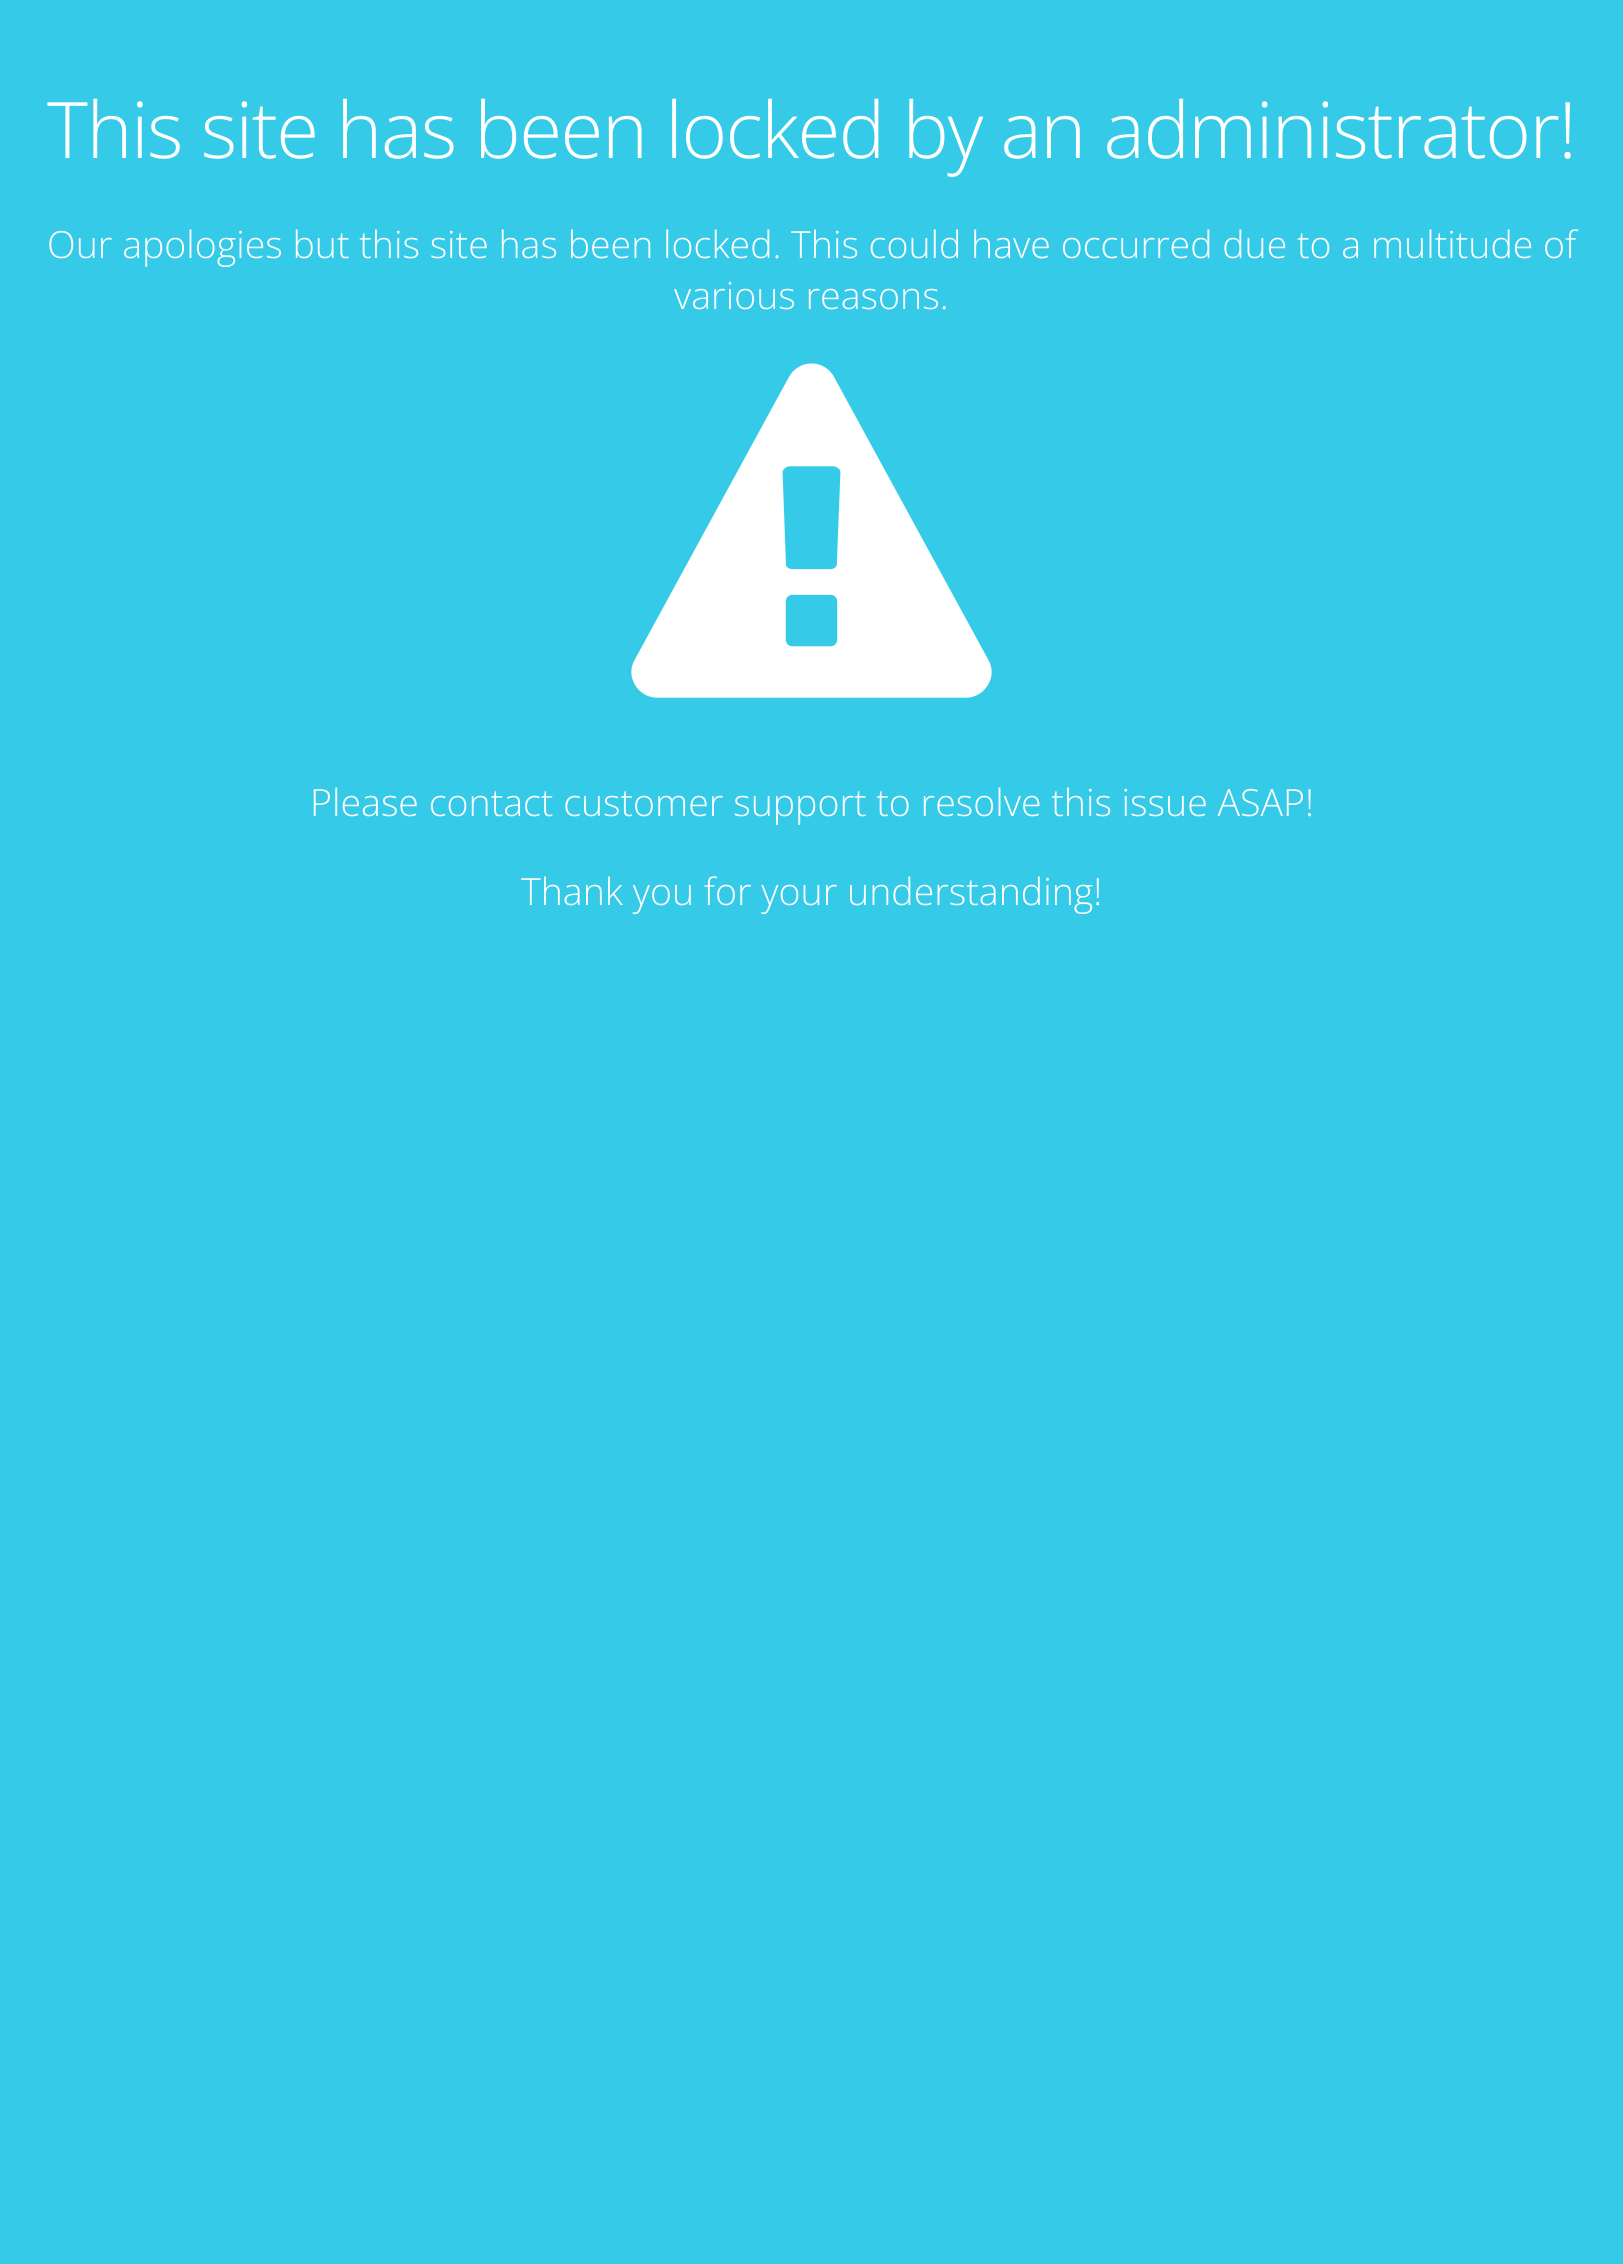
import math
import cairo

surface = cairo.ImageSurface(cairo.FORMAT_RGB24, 1623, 2264)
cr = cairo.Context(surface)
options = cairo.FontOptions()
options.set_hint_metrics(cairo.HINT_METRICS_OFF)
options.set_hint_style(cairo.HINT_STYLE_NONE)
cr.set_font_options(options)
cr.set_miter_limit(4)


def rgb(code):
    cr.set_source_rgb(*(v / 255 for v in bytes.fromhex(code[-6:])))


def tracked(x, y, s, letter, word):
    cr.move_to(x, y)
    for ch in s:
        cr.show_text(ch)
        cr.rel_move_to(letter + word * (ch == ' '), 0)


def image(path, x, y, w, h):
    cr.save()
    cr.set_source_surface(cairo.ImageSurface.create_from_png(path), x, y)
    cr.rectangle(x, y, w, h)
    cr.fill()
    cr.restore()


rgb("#36cae9")
cr.paint()
image("img/1.png", 631, 363, 361, 335)
cr.select_font_face("Open Sans Light")
cr.set_font_size(78)
rgb("#ffffff")
tracked(47, 158, "This site has been locked by an administrator!", -1.5, 0)
cr.set_font_size(37.5)
for x, y, s in [
    (47, 258, "Our apologies but this site has been locked. This could have occurred due to a multitude of"),
    (674, 309, "various reasons."),
    (310, 816, "Please contact customer support to resolve this issue ASAP!"),
    (521, 905, "Thank you for your understanding!"),
]:
    cr.move_to(x, y)
    cr.show_text(s)
surface.write_to_png("page.png")
